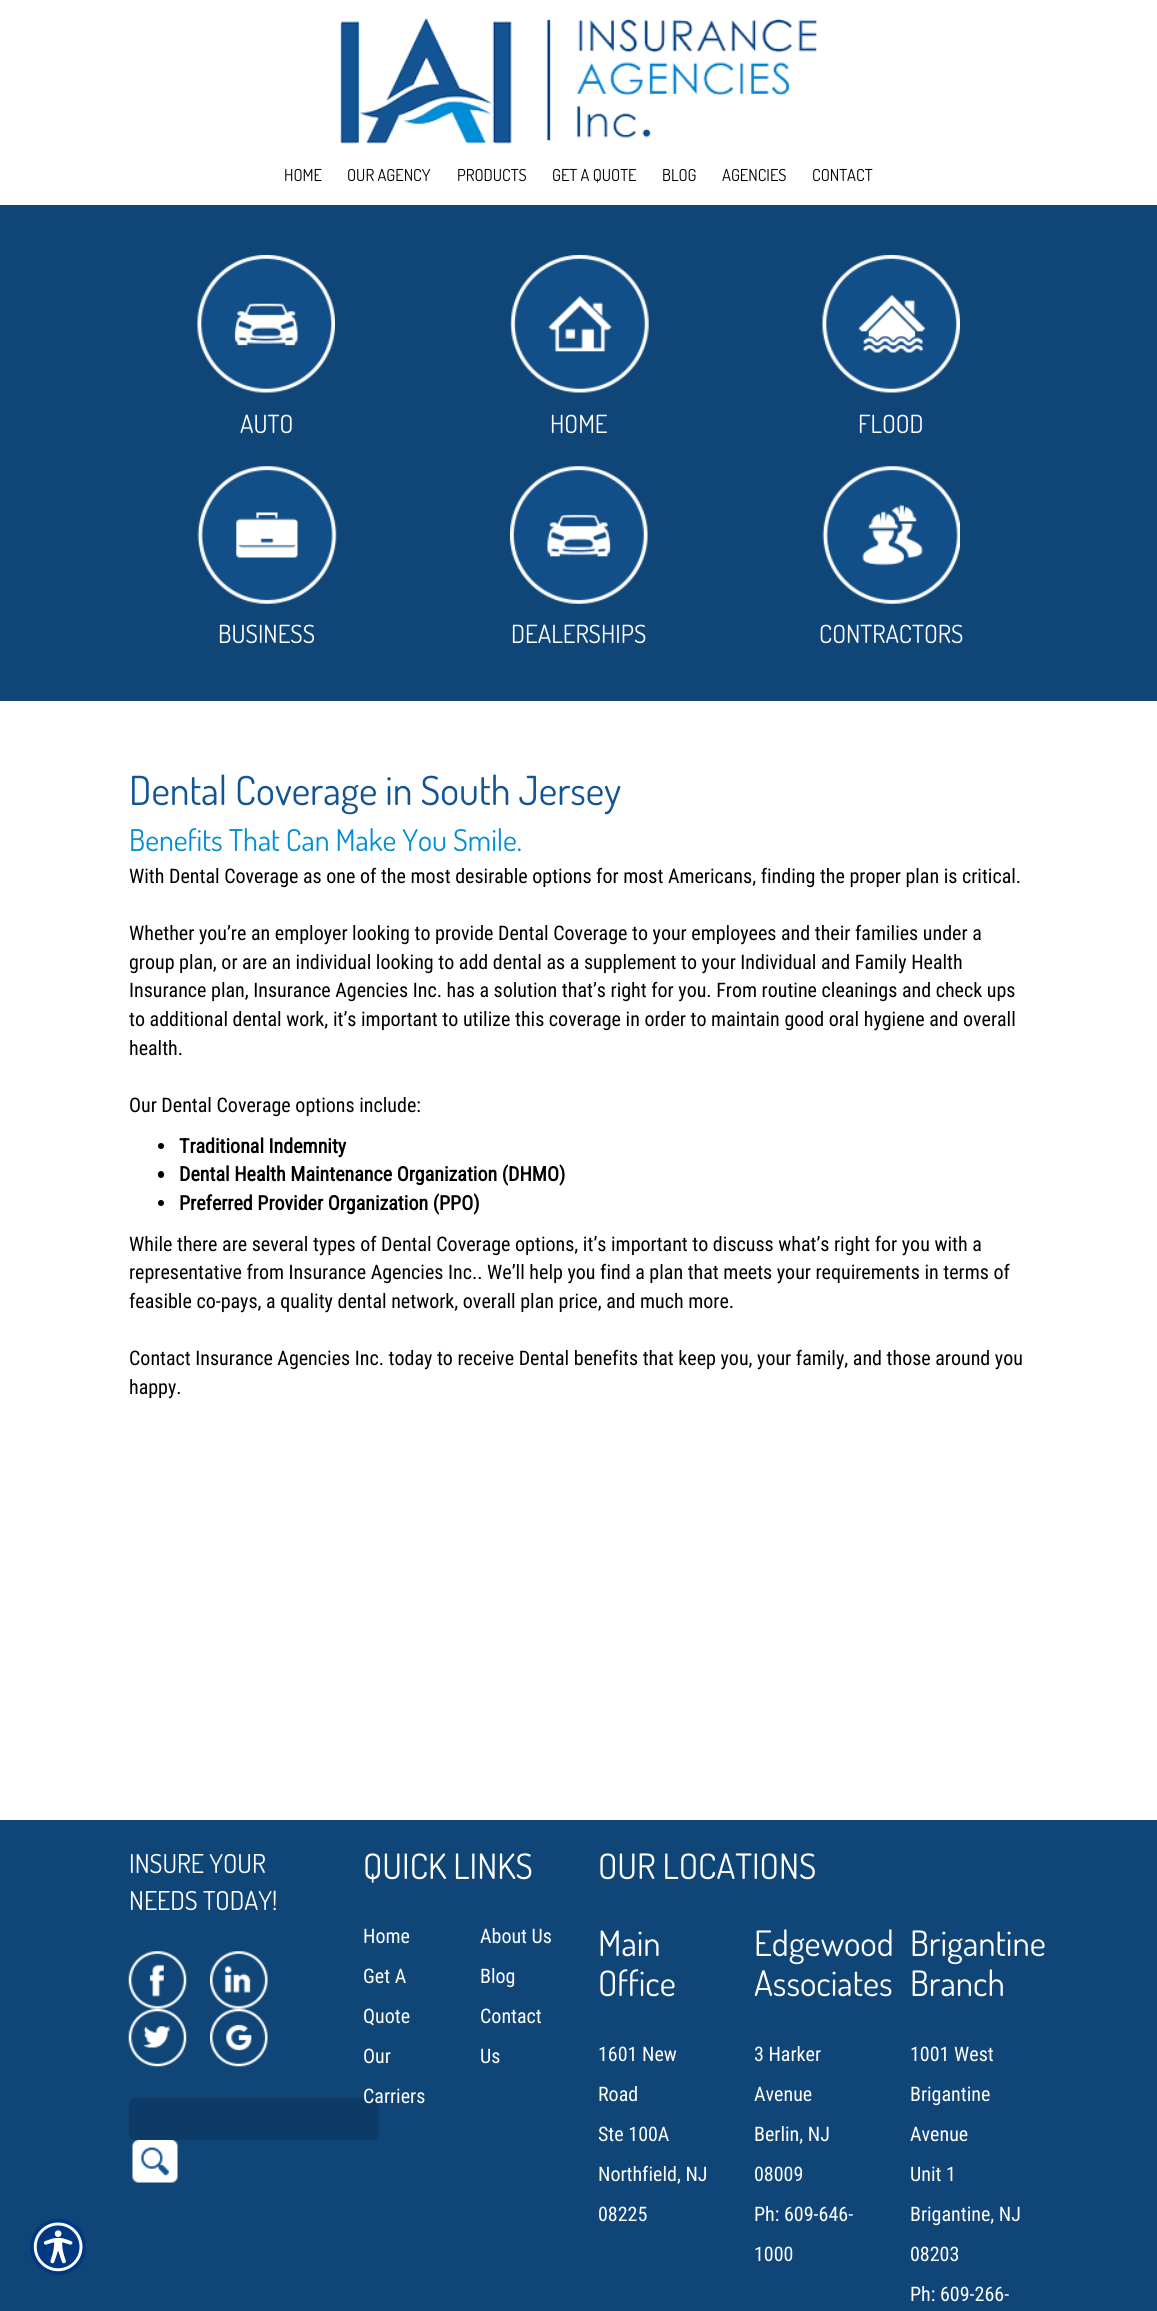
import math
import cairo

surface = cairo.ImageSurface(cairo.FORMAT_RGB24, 1157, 2311)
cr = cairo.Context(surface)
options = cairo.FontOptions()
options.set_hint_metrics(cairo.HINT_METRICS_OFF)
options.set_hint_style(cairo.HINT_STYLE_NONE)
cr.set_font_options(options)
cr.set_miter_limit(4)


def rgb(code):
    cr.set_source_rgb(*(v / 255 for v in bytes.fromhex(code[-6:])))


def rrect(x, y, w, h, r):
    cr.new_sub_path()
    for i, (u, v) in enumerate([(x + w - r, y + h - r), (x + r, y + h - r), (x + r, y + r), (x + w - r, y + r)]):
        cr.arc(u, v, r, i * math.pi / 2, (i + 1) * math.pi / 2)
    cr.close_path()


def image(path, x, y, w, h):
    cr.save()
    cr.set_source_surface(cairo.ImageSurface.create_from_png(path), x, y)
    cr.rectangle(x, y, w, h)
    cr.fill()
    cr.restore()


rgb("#ffffff")
cr.paint()
rgb("#104578")
cr.rectangle(0, 1820, 1157, 491)
cr.fill()
image("img/1.png", 30, 2219, 56, 56)
image("img/2.png", 340, 18, 477, 126)
cr.rectangle(0, 205, 1157, 496)
cr.fill()
image("img/3.png", 197, 255, 138, 138)
image("img/4.png", 510, 255, 139, 138)
image("img/5.png", 822, 255, 138, 138)
image("img/6.png", 197, 466, 140, 138)
image("img/7.png", 510, 466, 138, 138)
image("img/8.png", 822, 466, 138, 138)
rgb("#000000")
cr.arc(161, 1146, 3, 0, 2 * math.pi)
cr.fill()
rrect(158, 1171, 6, 7, 3)
cr.fill()
cr.arc(161, 1203, 3, 0, 2 * math.pi)
cr.fill()
image("img/9.png", 128, 1951, 59, 58)
image("img/10.png", 210, 1951, 58, 58)
image("img/11.png", 128, 2008, 59, 59)
image("img/12.png", 210, 2008, 58, 59)
rgb("#0d3a66")
rrect(129, 2098, 250, 42, 6)
cr.fill()
image("img/13.png", 132, 2140, 46, 43)
cr.select_font_face("Dosis")
cr.set_font_size(16.5)
rgb("#000000")
for x, y, s in [
    (284, 181, "HOME"),
    (347, 181, "OUR AGENCY"),
    (457, 181, "PRODUCTS"),
    (552, 181, "GET A QUOTE"),
    (662, 181, "BLOG"),
    (722, 181, "AGENCIES"),
    (812, 181, "CONTACT"),
]:
    cr.move_to(x, y)
    cr.show_text(s)
cr.set_font_size(25)
rgb("#ffffff")
for x, y, s in [
    (240, 433, "AUTO"),
    (550, 433, "HOME"),
    (858, 433, "FLOOD"),
    (218, 643, "BUSINESS"),
    (511, 643, "DEALERSHIPS"),
    (819, 643, "CONTRACTORS"),
]:
    cr.move_to(x, y)
    cr.show_text(s)
cr.set_font_size(40)
rgb("#135593")
cr.move_to(129, 805)
cr.show_text("Dental Coverage in South Jersey")
cr.set_font_size(30)
rgb("#008ed6")
cr.move_to(129, 851)
cr.show_text("Benefits That Can Make You Smile.")
cr.select_font_face("Roboto Condensed")
cr.set_font_size(20)
rgb("#000000")
for x, y, s in [
    (129, 883, "With Dental Coverage as one of the most desirable options for most Americans, finding the proper plan is critical."),
    (129, 940, "Whether you’re an employer looking to provide Dental Coverage to your employees and their families under a"),
    (129, 969, "group plan, or are an individual looking to add dental as a supplement to your Individual and Family Health"),
    (129, 997, "Insurance plan, Insurance Agencies Inc. has a solution that’s right for you. From routine cleanings and check ups"),
    (129, 1026, "to additional dental work, it’s important to utilize this coverage in order to maintain good oral hygiene and overall"),
    (129, 1055, "health."),
    (129, 1112, "Our Dental Coverage options include:"),
]:
    cr.move_to(x, y)
    cr.show_text(s)
cr.select_font_face("Roboto Condensed", cairo.FONT_SLANT_NORMAL, cairo.FONT_WEIGHT_BOLD)
for x, y, s in [
    (179, 1153, "Traditional Indemnity"),
    (179, 1181, "Dental Health Maintenance Organization (DHMO)"),
    (179, 1210, "Preferred Provider Organization (PPO)"),
]:
    cr.move_to(x, y)
    cr.show_text(s)
cr.select_font_face("Roboto Condensed")
for x, y, s in [
    (129, 1251, "While there are several types of Dental Coverage options, it’s important to discuss what’s right for you with a"),
    (129, 1279, "representative from Insurance Agencies Inc.. We’ll help you find a plan that meets your requirements in terms of"),
    (129, 1308, "feasible co-pays, a quality dental network, overall plan price, and much more."),
    (129, 1365, "Contact Insurance Agencies Inc. today to receive Dental benefits that keep you, your family, and those around you"),
    (129, 1394, "happy."),
]:
    cr.move_to(x, y)
    cr.show_text(s)
cr.select_font_face("Dosis")
cr.set_font_size(26)
rgb("#ffffff")
cr.move_to(129, 1873)
cr.show_text("INSURE YOUR")
cr.move_to(129, 1910)
cr.show_text("NEEDS TODAY!")
cr.set_font_size(35)
cr.move_to(363, 1879)
cr.show_text("QUICK LINKS")
cr.select_font_face("Roboto Condensed")
cr.set_font_size(20)
for x, y, s in [
    (363, 1943, "Home"),
    (363, 1983, "Get A"),
    (363, 2023, "Quote"),
    (363, 2063, "Our"),
    (363, 2103, "Carriers"),
    (480, 1943, "About Us"),
    (480, 1983, "Blog"),
    (480, 2023, "Contact"),
    (480, 2063, "Us"),
]:
    cr.move_to(x, y)
    cr.show_text(s)
cr.select_font_face("Dosis")
cr.set_font_size(35)
for x, y, s in [
    (598, 1879, "OUR LOCATIONS"),
    (598, 1956, "Main"),
    (598, 1996, "Office"),
]:
    cr.move_to(x, y)
    cr.show_text(s)
cr.select_font_face("Roboto Condensed")
cr.set_font_size(20)
for x, y, s in [
    (598, 2061, "1601 New"),
    (598, 2101, "Road"),
    (598, 2141, "Ste 100A"),
    (598, 2181, "Northfield, NJ"),
    (598, 2221, "08225"),
]:
    cr.move_to(x, y)
    cr.show_text(s)
cr.select_font_face("Dosis")
cr.set_font_size(35)
cr.move_to(754, 1956)
cr.show_text("Edgewood")
cr.move_to(754, 1996)
cr.show_text("Associates")
cr.select_font_face("Roboto Condensed")
cr.set_font_size(20)
for x, y, s in [
    (754, 2061, "3 Harker"),
    (754, 2101, "Avenue"),
    (754, 2141, "Berlin, NJ"),
    (754, 2181, "08009"),
    (754, 2221, "Ph: 609-646-"),
    (754, 2261, "1000"),
]:
    cr.move_to(x, y)
    cr.show_text(s)
cr.select_font_face("Dosis")
cr.set_font_size(35)
cr.move_to(910, 1956)
cr.show_text("Brigantine")
cr.move_to(910, 1996)
cr.show_text("Branch")
cr.select_font_face("Roboto Condensed")
cr.set_font_size(20)
for x, y, s in [
    (910, 2061, "1001 West"),
    (910, 2101, "Brigantine"),
    (910, 2141, "Avenue"),
    (910, 2181, "Unit 1"),
    (910, 2221, "Brigantine, NJ"),
    (910, 2261, "08203"),
    (910, 2301, "Ph: 609-266-"),
]:
    cr.move_to(x, y)
    cr.show_text(s)
surface.write_to_png("page.png")
